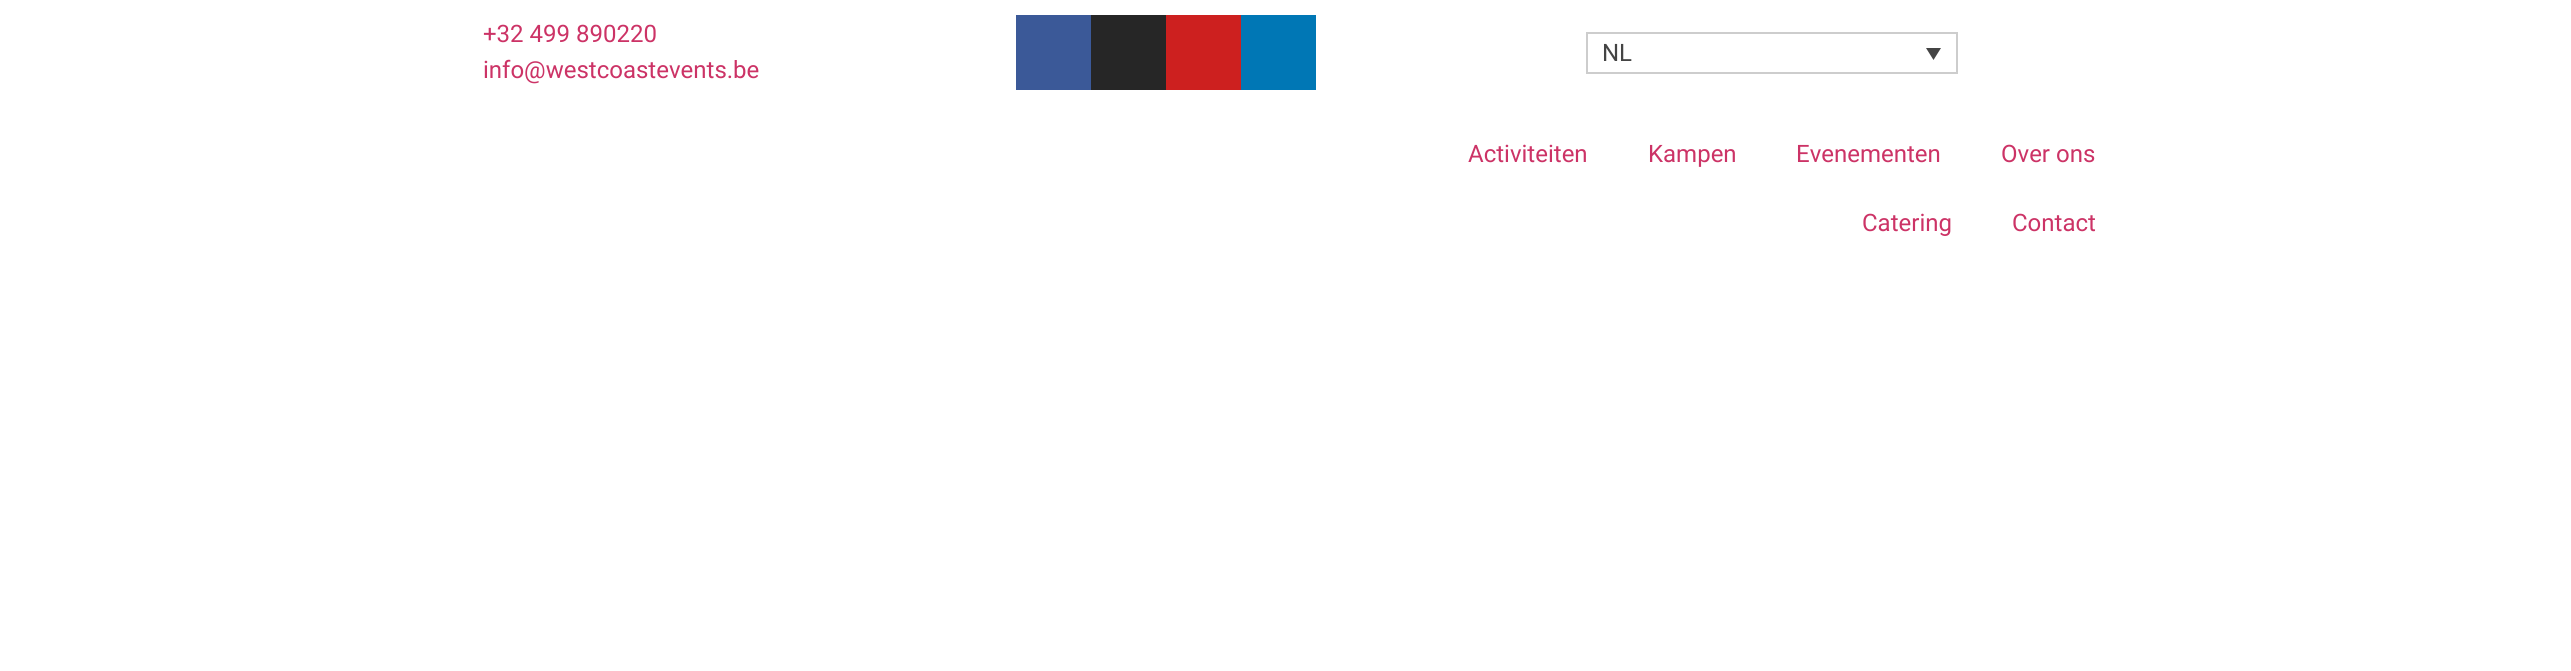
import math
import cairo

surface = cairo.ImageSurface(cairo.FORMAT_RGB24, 2571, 671)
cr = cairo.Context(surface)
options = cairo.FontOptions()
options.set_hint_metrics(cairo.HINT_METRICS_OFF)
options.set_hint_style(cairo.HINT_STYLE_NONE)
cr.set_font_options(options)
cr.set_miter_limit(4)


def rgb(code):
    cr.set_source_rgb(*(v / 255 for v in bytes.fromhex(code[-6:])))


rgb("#ffffff")
cr.paint()
for x, y, w, h, color in [
    (1016, 15, 75, 75, "#3b5998"),
    (1091, 15, 75, 75, "#262626"),
    (1166, 15, 75, 75, "#cd201f"),
    (1241, 15, 75, 75, "#0077b5"),
]:
    rgb(color)
    cr.rectangle(x, y, w, h)
    cr.fill()
cr.rectangle(1587, 33, 370, 40)
rgb("#cdcdcd")
cr.stroke()
rgb("#444444")
cr.new_path()
cr.move_to(1926, 48)
cr.line_to(1941, 48)
cr.line_to(1933.5, 60)
cr.close_path()
cr.fill()
cr.select_font_face("Roboto")
cr.set_font_size(24)
rgb("#cc3366")
cr.move_to(483, 42)
cr.show_text("+32 499 890220")
cr.move_to(483, 78)
cr.show_text("info@westcoastevents.be")
rgb("#444444")
cr.move_to(1602, 61)
cr.show_text("NL")
rgb("#cc3366")
for x, y, s in [
    (1468, 162, "Activiteiten"),
    (1648, 162, "Kampen"),
    (1796, 162, "Evenementen"),
    (2001, 162, "Over ons"),
    (1862, 231, "Catering"),
    (2012, 231, "Contact"),
]:
    cr.move_to(x, y)
    cr.show_text(s)
surface.write_to_png("page.png")
